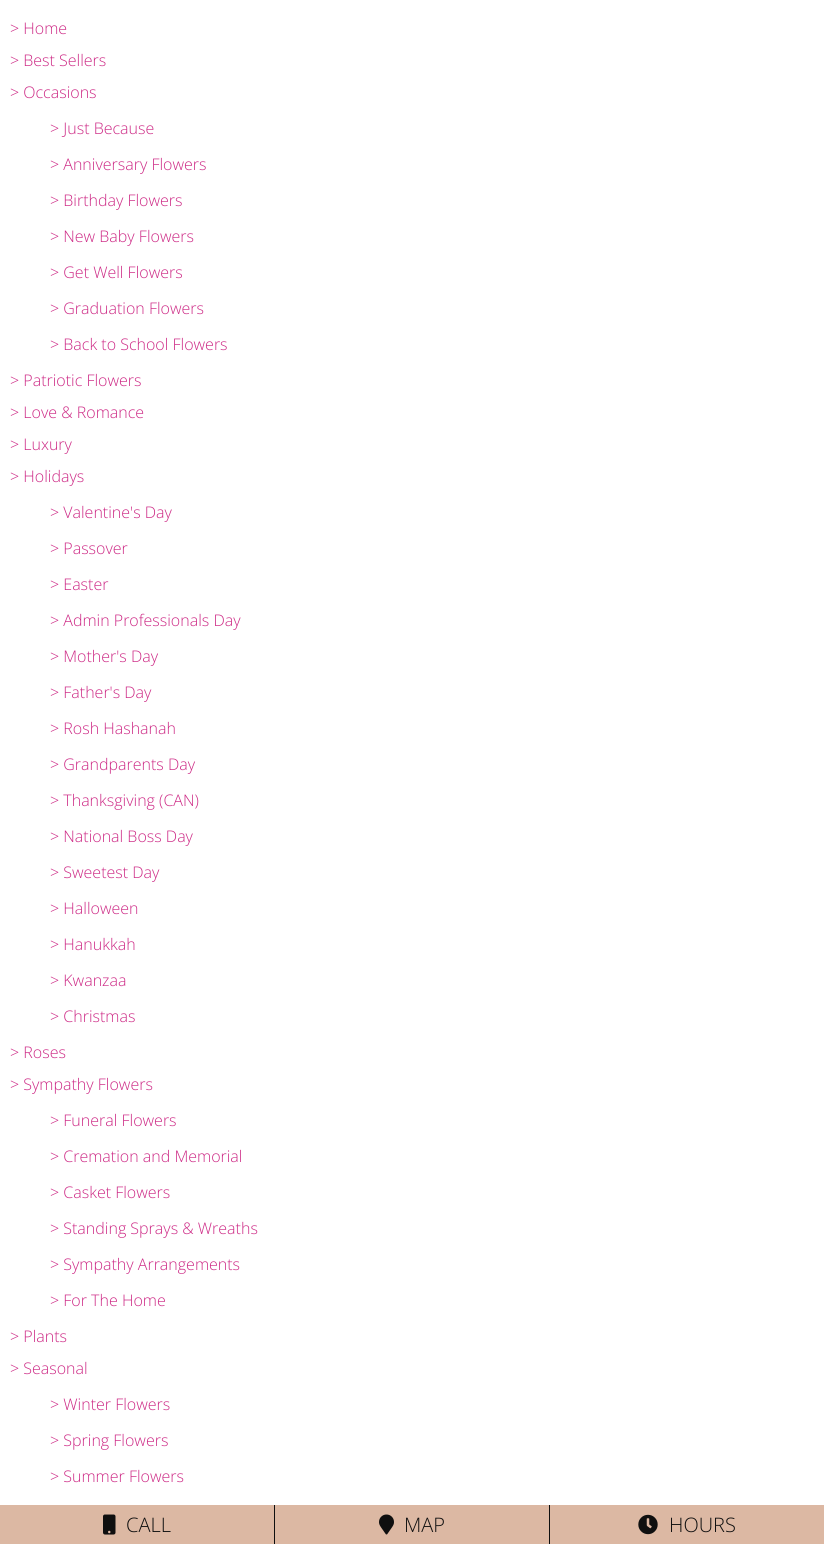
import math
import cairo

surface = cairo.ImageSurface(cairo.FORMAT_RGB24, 824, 1544)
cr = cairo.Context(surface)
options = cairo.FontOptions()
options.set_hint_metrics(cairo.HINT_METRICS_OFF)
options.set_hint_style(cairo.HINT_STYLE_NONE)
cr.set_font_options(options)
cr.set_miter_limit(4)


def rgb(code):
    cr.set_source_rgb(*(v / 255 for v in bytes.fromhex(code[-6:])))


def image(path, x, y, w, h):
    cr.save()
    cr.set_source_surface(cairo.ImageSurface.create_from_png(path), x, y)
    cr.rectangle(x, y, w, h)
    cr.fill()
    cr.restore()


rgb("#ffffff")
cr.paint()
rgb("#dcb8a3")
cr.rectangle(0, 1505, 274, 39)
cr.fill()
image("img/1.png", 103, 1514, 13, 21)
cr.rectangle(275, 1505, 274, 39)
cr.fill()
rgb("#0f0f0f")
cr.rectangle(274, 1505, 1, 39)
cr.fill()
image("img/2.png", 379, 1514, 15, 21)
rgb("#dcb8a3")
cr.rectangle(550, 1505, 274, 39)
cr.fill()
rgb("#0f0f0f")
cr.rectangle(549, 1505, 1, 39)
cr.fill()
image("img/3.png", 638, 1514, 20, 21)
cr.select_font_face("Open Sans Light")
cr.set_font_size(16)
rgb("#cd2985")
for x, y, s in [
    (10, 34, "> Home"),
    (10, 66, "> Best Sellers"),
    (10, 98, "> Occasions"),
    (50, 134, "> Just Because"),
    (50, 170, "> Anniversary Flowers"),
    (50, 206, "> Birthday Flowers"),
    (50, 242, "> New Baby Flowers"),
    (50, 278, "> Get Well Flowers"),
    (50, 314, "> Graduation Flowers"),
    (50, 350, "> Back to School Flowers"),
    (10, 386, "> Patriotic Flowers"),
    (10, 418, "> Love & Romance"),
    (10, 450, "> Luxury"),
    (10, 482, "> Holidays"),
    (50, 518, "> Valentine's Day"),
    (50, 554, "> Passover"),
    (50, 590, "> Easter"),
    (50, 626, "> Admin Professionals Day"),
    (50, 662, "> Mother's Day"),
    (50, 698, "> Father's Day"),
    (50, 734, "> Rosh Hashanah"),
    (50, 770, "> Grandparents Day"),
    (50, 806, "> Thanksgiving (CAN)"),
    (50, 842, "> National Boss Day"),
    (50, 878, "> Sweetest Day"),
    (50, 914, "> Halloween"),
    (50, 950, "> Hanukkah"),
    (50, 986, "> Kwanzaa"),
    (50, 1022, "> Christmas"),
    (10, 1058, "> Roses"),
    (10, 1090, "> Sympathy Flowers"),
    (50, 1126, "> Funeral Flowers"),
    (50, 1162, "> Cremation and Memorial"),
    (50, 1198, "> Casket Flowers"),
    (50, 1234, "> Standing Sprays & Wreaths"),
    (50, 1270, "> Sympathy Arrangements"),
    (50, 1306, "> For The Home"),
    (10, 1342, "> Plants"),
    (10, 1374, "> Seasonal"),
    (50, 1410, "> Winter Flowers"),
    (50, 1446, "> Spring Flowers"),
    (50, 1482, "> Summer Flowers"),
]:
    cr.move_to(x, y)
    cr.show_text(s)
cr.set_font_size(20)
rgb("#0f0f0f")
for x, y, s in [
    (126, 1532, "CALL"),
    (404, 1532, "MAP"),
    (669, 1532, "HOURS"),
]:
    cr.move_to(x, y)
    cr.show_text(s)
surface.write_to_png("page.png")
